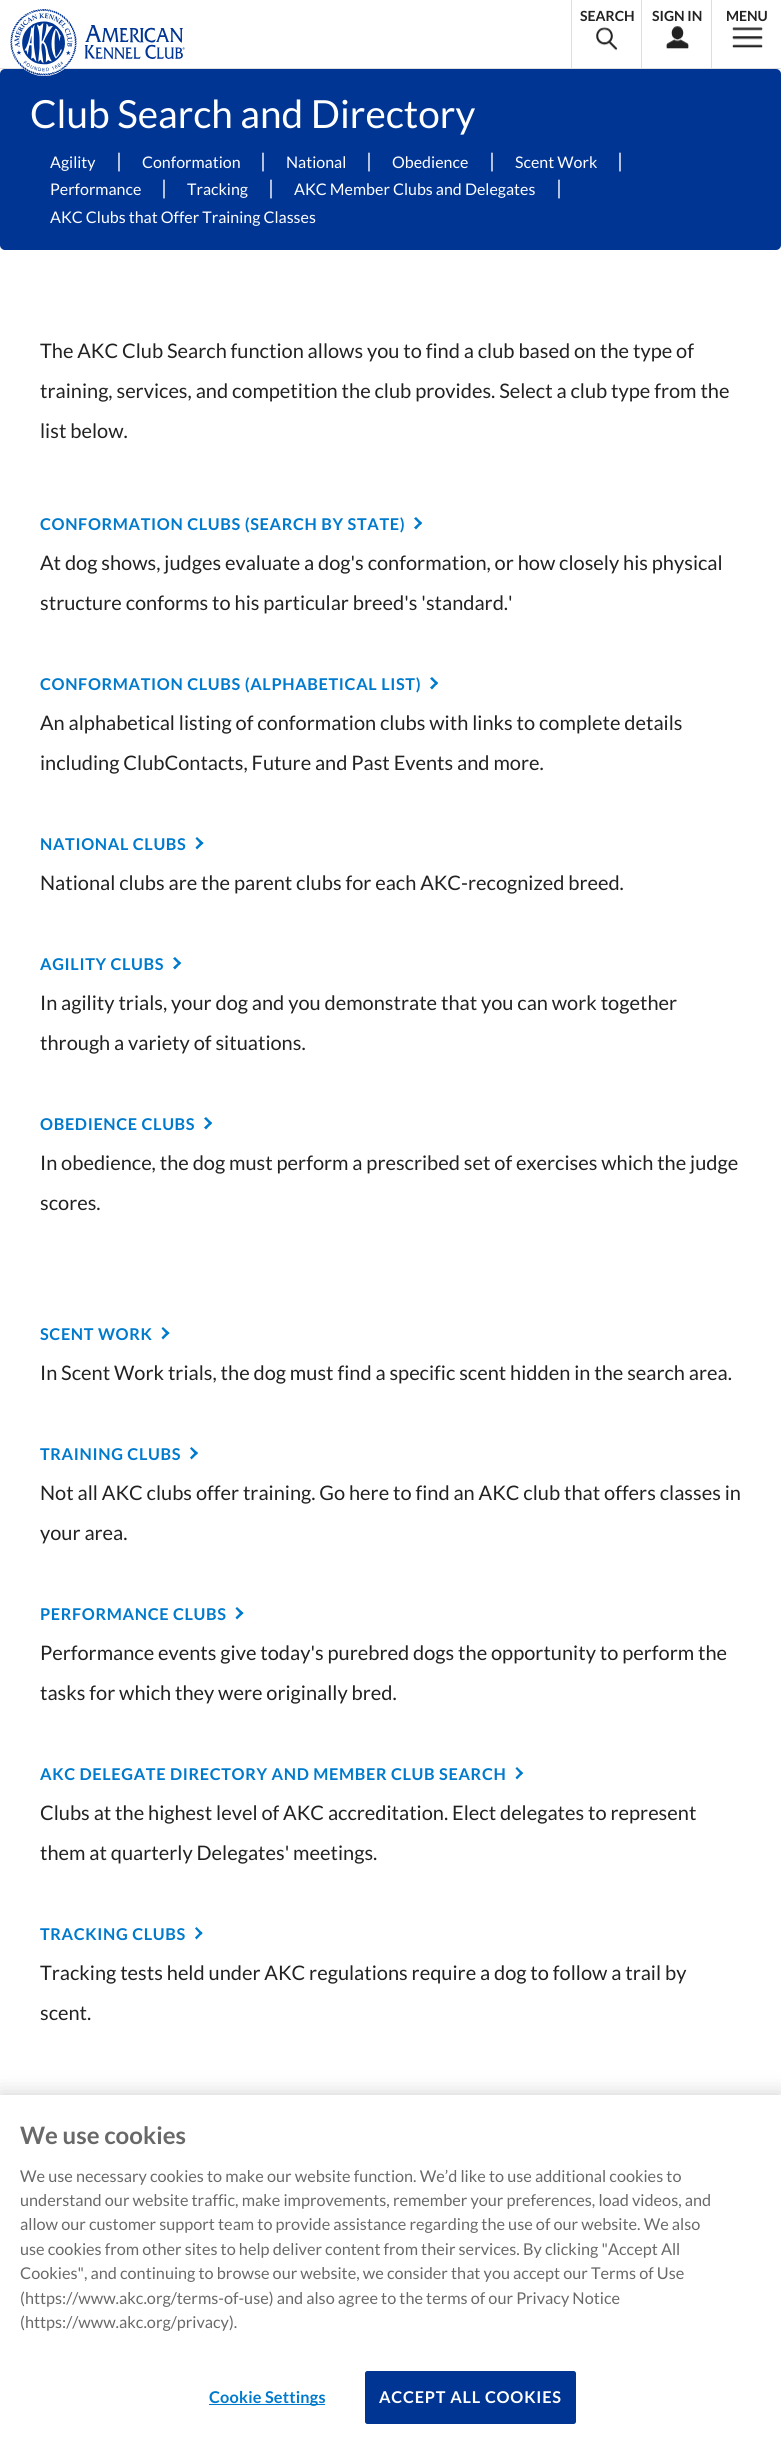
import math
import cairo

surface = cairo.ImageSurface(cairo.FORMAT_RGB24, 781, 2443)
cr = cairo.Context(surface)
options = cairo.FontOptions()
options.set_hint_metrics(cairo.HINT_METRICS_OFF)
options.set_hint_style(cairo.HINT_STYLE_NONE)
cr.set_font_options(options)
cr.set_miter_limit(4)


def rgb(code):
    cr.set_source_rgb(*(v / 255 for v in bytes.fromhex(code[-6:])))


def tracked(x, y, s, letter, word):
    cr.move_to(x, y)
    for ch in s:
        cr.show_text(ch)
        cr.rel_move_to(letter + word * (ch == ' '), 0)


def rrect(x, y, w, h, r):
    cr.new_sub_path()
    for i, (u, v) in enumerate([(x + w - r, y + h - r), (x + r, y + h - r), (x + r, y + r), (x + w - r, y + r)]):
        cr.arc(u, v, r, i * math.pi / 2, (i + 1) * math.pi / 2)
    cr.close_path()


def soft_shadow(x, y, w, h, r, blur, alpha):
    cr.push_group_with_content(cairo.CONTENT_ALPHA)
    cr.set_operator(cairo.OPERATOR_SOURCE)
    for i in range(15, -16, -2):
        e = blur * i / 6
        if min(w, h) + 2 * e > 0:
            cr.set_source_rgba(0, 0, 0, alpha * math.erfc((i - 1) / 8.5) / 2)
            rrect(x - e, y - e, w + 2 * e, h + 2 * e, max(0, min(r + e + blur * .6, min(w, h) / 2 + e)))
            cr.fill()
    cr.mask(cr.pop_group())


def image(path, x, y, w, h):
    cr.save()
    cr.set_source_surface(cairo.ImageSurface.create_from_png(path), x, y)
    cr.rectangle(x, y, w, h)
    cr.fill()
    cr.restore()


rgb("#ffffff")
cr.paint()
for x, y, w, h, color in [
    (571, 0, 1, 69, "#dedede"),
    (641, 0, 1, 69, "#dedede"),
    (711, 0, 1, 69, "#dedede"),
    (0, 68, 781, 1, "#dedede"),
]:
    rgb(color)
    cr.rectangle(x, y, w, h)
    cr.fill()
rgb("#003594")
rrect(0, 69, 781, 181, 5)
cr.fill()
image("img/1.png", 10, 9, 175, 67)
image("img/2.png", 596, 27, 22, 24)
image("img/3.png", 666, 26, 23, 23)
image("img/4.png", 732, 27, 31, 21)
rgb("#007acc")
cr.new_path()
cr.move_to(416, 517)
cr.line_to(422, 523)
cr.line_to(420.5, 525)
cr.line_to(414, 518.5)
cr.close_path()
cr.fill()
cr.new_path()
cr.move_to(420.5, 521.5)
cr.line_to(422, 523)
cr.line_to(416, 529.5)
cr.line_to(414, 527.5)
cr.close_path()
cr.fill()
cr.new_path()
cr.move_to(432, 677)
cr.line_to(438, 683)
cr.line_to(436.5, 685)
cr.line_to(430, 678.5)
cr.close_path()
cr.fill()
cr.new_path()
cr.move_to(436.5, 681.5)
cr.line_to(438, 683)
cr.line_to(432, 689.5)
cr.line_to(430, 687.5)
cr.close_path()
cr.fill()
cr.new_path()
cr.move_to(197, 837)
cr.line_to(203.5, 843)
cr.line_to(201.5, 845)
cr.line_to(195.5, 838.5)
cr.close_path()
cr.fill()
cr.new_path()
cr.move_to(201.5, 841.5)
cr.line_to(203.5, 843)
cr.line_to(197, 849.5)
cr.line_to(195.5, 847.5)
cr.close_path()
cr.fill()
cr.new_path()
cr.move_to(175, 957)
cr.line_to(181, 963)
cr.line_to(179.5, 965)
cr.line_to(173, 958.5)
cr.close_path()
cr.fill()
cr.new_path()
cr.move_to(179.5, 961.5)
cr.line_to(181, 963)
cr.line_to(175, 969.5)
cr.line_to(173, 967.5)
cr.close_path()
cr.fill()
cr.new_path()
cr.move_to(206, 1117)
cr.line_to(212, 1123)
cr.line_to(210.5, 1125)
cr.line_to(204, 1118.5)
cr.close_path()
cr.fill()
cr.new_path()
cr.move_to(210.5, 1121.5)
cr.line_to(212, 1123)
cr.line_to(206, 1129.5)
cr.line_to(204, 1127.5)
cr.close_path()
cr.fill()
cr.new_path()
cr.move_to(163, 1327)
cr.line_to(169.5, 1333)
cr.line_to(167.5, 1335)
cr.line_to(161.5, 1328.5)
cr.close_path()
cr.fill()
cr.new_path()
cr.move_to(167.5, 1331.5)
cr.line_to(169.5, 1333)
cr.line_to(163, 1339.5)
cr.line_to(161.5, 1337.5)
cr.close_path()
cr.fill()
cr.new_path()
cr.move_to(191.5, 1447)
cr.line_to(198, 1453)
cr.line_to(196, 1455)
cr.line_to(190, 1448.5)
cr.close_path()
cr.fill()
cr.new_path()
cr.move_to(196, 1451.5)
cr.line_to(198, 1453)
cr.line_to(191.5, 1459.5)
cr.line_to(190, 1457.5)
cr.close_path()
cr.fill()
cr.new_path()
cr.move_to(237, 1607)
cr.line_to(243.5, 1613)
cr.line_to(241.5, 1615)
cr.line_to(235.5, 1608.5)
cr.close_path()
cr.fill()
cr.new_path()
cr.move_to(241.5, 1611.5)
cr.line_to(243.5, 1613)
cr.line_to(237, 1619.5)
cr.line_to(235.5, 1617.5)
cr.close_path()
cr.fill()
cr.new_path()
cr.move_to(517, 1767)
cr.line_to(523, 1773)
cr.line_to(521.5, 1775)
cr.line_to(515.5, 1768.5)
cr.close_path()
cr.fill()
cr.new_path()
cr.move_to(521.5, 1771.5)
cr.line_to(523, 1773)
cr.line_to(517, 1779.5)
cr.line_to(515.5, 1777.5)
cr.close_path()
cr.fill()
cr.new_path()
cr.move_to(196.5, 1927)
cr.line_to(202.5, 1933)
cr.line_to(201, 1935)
cr.line_to(195, 1928.5)
cr.close_path()
cr.fill()
cr.new_path()
cr.move_to(201, 1931.5)
cr.line_to(202.5, 1933)
cr.line_to(196.5, 1939.5)
cr.line_to(195, 1937.5)
cr.close_path()
cr.fill()
rgb("#000000")
soft_shadow(0, 2095, 781, 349, 0, 11, 0.2)
rgb("#ffffff")
cr.rectangle(0, 2095, 781, 348)
cr.fill()
rgb("#007acc")
cr.rectangle(209, 2404, 116, 1)
cr.fill()
rgb("#003594")
rrect(365.5, 2371.5, 210, 52, 2)
cr.fill_preserve()
cr.set_line_width(1)
cr.stroke()
cr.select_font_face("Lato", cairo.FONT_SLANT_NORMAL, cairo.FONT_WEIGHT_BOLD)
cr.set_font_size(14)
rgb("#222223")
for x, y, s in [
    (580, 21, "SEARCH"),
    (652, 21, "SIGN IN"),
    (726, 21, "MENU"),
]:
    cr.move_to(x, y)
    cr.show_text(s)
cr.select_font_face("Lato")
cr.set_font_size(38.75)
rgb("#ffffff")
cr.move_to(30, 128)
cr.show_text("Club Search and Directory")
cr.set_font_size(16)
cr.move_to(50, 168)
cr.show_text("Agility")
cr.set_font_size(20)
cr.move_to(116, 168)
cr.show_text("|")
cr.set_font_size(16)
cr.move_to(142, 168)
cr.show_text("Conformation")
cr.set_font_size(20)
cr.move_to(260, 168)
cr.show_text("|")
cr.set_font_size(16)
cr.move_to(286, 168)
cr.show_text("National")
cr.set_font_size(20)
cr.move_to(366, 168)
cr.show_text("|")
cr.set_font_size(16)
cr.move_to(392, 168)
cr.show_text("Obedience")
cr.set_font_size(20)
cr.move_to(489, 168)
cr.show_text("|")
cr.set_font_size(16)
cr.move_to(515, 168)
cr.show_text("Scent Work")
cr.set_font_size(20)
cr.move_to(617, 168)
cr.show_text("|")
cr.set_font_size(16)
cr.move_to(50, 195)
cr.show_text("Performance")
cr.set_font_size(20)
cr.move_to(161, 195)
cr.show_text("|")
cr.set_font_size(16)
cr.move_to(187, 195)
cr.show_text("Tracking")
cr.set_font_size(20)
cr.move_to(268, 195)
cr.show_text("|")
cr.set_font_size(16)
cr.move_to(294, 195)
cr.show_text("AKC Member Clubs and Delegates")
cr.set_font_size(20)
cr.move_to(556, 195)
cr.show_text("|")
cr.set_font_size(16)
cr.move_to(50, 223)
cr.show_text("AKC Clubs that Offer Training Classes")
cr.set_font_size(20)
rgb("#222223")
for x, y, s in [
    (40, 358, "The AKC Club Search function allows you to find a club based on the type of"),
    (40, 398, "training, services, and competition the club provides. Select a club type from the"),
    (40, 438, "list below."),
]:
    cr.move_to(x, y)
    cr.show_text(s)
cr.select_font_face("Lato", cairo.FONT_SLANT_NORMAL, cairo.FONT_WEIGHT_BOLD)
cr.set_font_size(16.25)
rgb("#007acc")
tracked(40, 530, "CONFORMATION CLUBS (SEARCH BY STATE)", 0.65, 0)
cr.select_font_face("Lato")
cr.set_font_size(20)
rgb("#222223")
cr.move_to(40, 570)
cr.show_text("At dog shows, judges evaluate a dog's conformation, or how closely his physical")
cr.move_to(40, 610)
cr.show_text("structure conforms to his particular breed's 'standard.'")
cr.select_font_face("Lato", cairo.FONT_SLANT_NORMAL, cairo.FONT_WEIGHT_BOLD)
cr.set_font_size(16.25)
rgb("#007acc")
tracked(40, 690, "CONFORMATION CLUBS (ALPHABETICAL LIST)", 0.65, 0)
cr.select_font_face("Lato")
cr.set_font_size(20)
rgb("#222223")
cr.move_to(40, 730)
cr.show_text("An alphabetical listing of conformation clubs with links to complete details")
cr.move_to(40, 770)
cr.show_text("including ClubContacts, Future and Past Events and more.")
cr.select_font_face("Lato", cairo.FONT_SLANT_NORMAL, cairo.FONT_WEIGHT_BOLD)
cr.set_font_size(16.25)
rgb("#007acc")
tracked(40, 850, "NATIONAL CLUBS", 0.65, 0)
cr.select_font_face("Lato")
cr.set_font_size(20)
rgb("#222223")
cr.move_to(40, 890)
cr.show_text("National clubs are the parent clubs for each AKC-recognized breed.")
cr.select_font_face("Lato", cairo.FONT_SLANT_NORMAL, cairo.FONT_WEIGHT_BOLD)
cr.set_font_size(16.25)
rgb("#007acc")
tracked(40, 970, "AGILITY CLUBS", 0.65, 0)
cr.select_font_face("Lato")
cr.set_font_size(20)
rgb("#222223")
cr.move_to(40, 1010)
cr.show_text("In agility trials, your dog and you demonstrate that you can work together")
cr.move_to(40, 1050)
cr.show_text("through a variety of situations.")
cr.select_font_face("Lato", cairo.FONT_SLANT_NORMAL, cairo.FONT_WEIGHT_BOLD)
cr.set_font_size(16.25)
rgb("#007acc")
tracked(40, 1130, "OBEDIENCE CLUBS", 0.65, 0)
cr.select_font_face("Lato")
cr.set_font_size(20)
rgb("#222223")
cr.move_to(40, 1170)
cr.show_text("In obedience, the dog must perform a prescribed set of exercises which the judge")
cr.move_to(40, 1210)
cr.show_text("scores.")
cr.select_font_face("Lato", cairo.FONT_SLANT_NORMAL, cairo.FONT_WEIGHT_BOLD)
cr.set_font_size(16.25)
rgb("#007acc")
tracked(40, 1340, "SCENT WORK", 0.65, 0)
cr.select_font_face("Lato")
cr.set_font_size(20)
rgb("#222223")
cr.move_to(40, 1380)
cr.show_text("In Scent Work trials, the dog must find a specific scent hidden in the search area.")
cr.select_font_face("Lato", cairo.FONT_SLANT_NORMAL, cairo.FONT_WEIGHT_BOLD)
cr.set_font_size(16.25)
rgb("#007acc")
tracked(40, 1460, "TRAINING CLUBS", 0.65, 0)
cr.select_font_face("Lato")
cr.set_font_size(20)
rgb("#222223")
cr.move_to(40, 1500)
cr.show_text("Not all AKC clubs offer training. Go here to find an AKC club that offers classes in")
cr.move_to(40, 1540)
cr.show_text("your area.")
cr.select_font_face("Lato", cairo.FONT_SLANT_NORMAL, cairo.FONT_WEIGHT_BOLD)
cr.set_font_size(16.25)
rgb("#007acc")
tracked(40, 1620, "PERFORMANCE CLUBS", 0.65, 0)
cr.select_font_face("Lato")
cr.set_font_size(20)
rgb("#222223")
cr.move_to(40, 1660)
cr.show_text("Performance events give today's purebred dogs the opportunity to perform the")
cr.move_to(40, 1700)
cr.show_text("tasks for which they were originally bred.")
cr.select_font_face("Lato", cairo.FONT_SLANT_NORMAL, cairo.FONT_WEIGHT_BOLD)
cr.set_font_size(16.25)
rgb("#007acc")
tracked(40, 1780, "AKC DELEGATE DIRECTORY AND MEMBER CLUB SEARCH", 0.65, 0)
cr.select_font_face("Lato")
cr.set_font_size(20)
rgb("#222223")
cr.move_to(40, 1820)
cr.show_text("Clubs at the highest level of AKC accreditation. Elect delegates to represent")
cr.move_to(40, 1860)
cr.show_text("them at quarterly Delegates' meetings.")
cr.select_font_face("Lato", cairo.FONT_SLANT_NORMAL, cairo.FONT_WEIGHT_BOLD)
cr.set_font_size(16.25)
rgb("#007acc")
tracked(40, 1940, "TRACKING CLUBS", 0.65, 0)
cr.select_font_face("Lato")
cr.set_font_size(20)
rgb("#222223")
cr.move_to(40, 1980)
cr.show_text("Tracking tests held under AKC regulations require a dog to follow a trail by")
cr.move_to(40, 2020)
cr.show_text("scent.")
cr.select_font_face("Lato", cairo.FONT_SLANT_NORMAL, cairo.FONT_WEIGHT_BOLD)
cr.set_font_size(24)
rgb("#696969")
cr.move_to(20, 2144)
cr.show_text("We use cookies")
cr.select_font_face("Lato")
cr.set_font_size(16.25)
for x, y, s in [
    (20, 2182, "We use necessary cookies to make our website function. We’d like to use additional cookies to"),
    (20, 2206, "understand our website traffic, make improvements, remember your preferences, load videos, and"),
    (20, 2230, "allow our customer support team to provide assistance regarding the use of our website. We also"),
    (20, 2255, "use cookies from other sites to help deliver content from their services. By clicking \"Accept All"),
    (20, 2279, "Cookies\", and continuing to browse our website, we consider that you accept our Terms of Use"),
    (20, 2304, "(https://www.akc.org/terms-of-use) and also agree to the terms of our Privacy Notice"),
    (20, 2328, "(https://www.akc.org/privacy)."),
]:
    cr.move_to(x, y)
    cr.show_text(s)
cr.select_font_face("Lato", cairo.FONT_SLANT_NORMAL, cairo.FONT_WEIGHT_BOLD)
rgb("#007acc")
tracked(209, 2403, "Cookie Settings", 0.2, 0)
rgb("#ffffff")
tracked(379, 2403, "ACCEPT ALL COOKIES", 0.8, 0)
surface.write_to_png("page.png")
